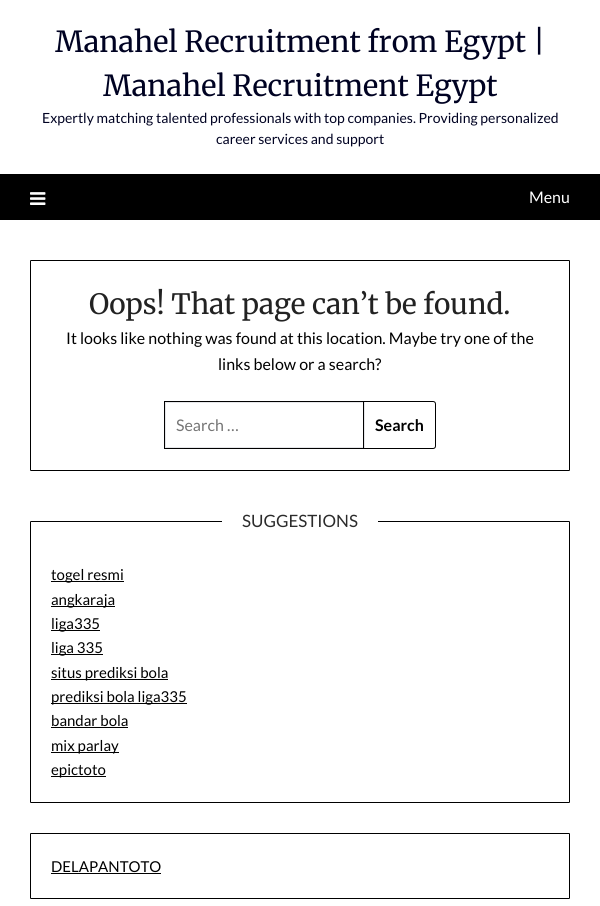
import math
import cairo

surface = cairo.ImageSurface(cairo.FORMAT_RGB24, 600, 906)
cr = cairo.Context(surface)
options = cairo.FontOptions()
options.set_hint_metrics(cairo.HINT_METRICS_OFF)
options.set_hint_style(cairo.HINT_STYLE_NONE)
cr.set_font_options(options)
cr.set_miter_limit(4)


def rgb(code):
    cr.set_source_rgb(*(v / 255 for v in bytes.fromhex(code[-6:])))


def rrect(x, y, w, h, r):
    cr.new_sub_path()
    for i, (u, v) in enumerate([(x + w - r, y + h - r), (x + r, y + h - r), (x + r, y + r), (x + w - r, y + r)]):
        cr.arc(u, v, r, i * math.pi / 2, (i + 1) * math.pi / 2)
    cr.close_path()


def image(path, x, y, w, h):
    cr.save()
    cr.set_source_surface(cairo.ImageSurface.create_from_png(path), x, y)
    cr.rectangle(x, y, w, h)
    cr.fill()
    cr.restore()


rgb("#ffffff")
cr.paint()
rgb("#000000")
cr.rectangle(0, 174, 600, 46)
cr.fill()
image("img/1.png", 30, 192, 16, 13)
rrect(30.5, 260.5, 539, 210, 0.5)
cr.set_line_width(1)
cr.stroke()
for x, y, w, h, color in [
    (164, 401, 201, 1, "#000000"),
    (164, 448, 201, 1, "#000000"),
    (164, 401, 1, 48, "#000000"),
]:
    rgb(color)
    cr.rectangle(x, y, w, h)
    cr.fill()
cr.rectangle(165.5, 402.5, 199, 45)
rgb("#e5e6e9")
cr.stroke()
cr.new_path()
cr.move_to(363.5, 401.5)
cr.line_to(433, 401.5)
cr.curve_to(434.5, 401.5, 435.5, 402.5, 435.5, 404)
cr.line_to(435.5, 446)
cr.curve_to(435.5, 447.5, 434.5, 448.5, 433, 448.5)
cr.line_to(363.5, 448.5)
cr.close_path()
rgb("#000000")
cr.stroke()
rrect(30.5, 521.5, 539, 281, 0.5)
cr.stroke()
for x, y, w, h, color in [
    (222, 521, 156, 1, "#ffffff"),
    (51, 581, 73, 1, "#000000"),
    (51, 606, 64, 1, "#000000"),
    (51, 630, 49, 1, "#000000"),
    (51, 654, 52, 1, "#000000"),
    (51, 679, 117, 1, "#000000"),
    (51, 703, 136, 1, "#000000"),
    (51, 727, 77, 1, "#000000"),
    (51, 752, 68, 1, "#000000"),
    (51, 776, 55, 1, "#000000"),
]:
    rgb(color)
    cr.rectangle(x, y, w, h)
    cr.fill()
rrect(30.5, 833.5, 539, 65, 0.5)
cr.stroke()
cr.rectangle(51, 873, 110, 1)
cr.fill()
cr.select_font_face("Merriweather")
cr.set_font_size(29)
rgb("#000222")
cr.move_to(55, 52)
cr.show_text("Manahel Recruitment from Egypt |")
cr.move_to(103, 96)
cr.show_text("Manahel Recruitment Egypt")
cr.select_font_face("Lato")
cr.set_font_size(14)
cr.move_to(42, 123)
cr.show_text("Expertly matching talented professionals with top companies. Providing personalized")
cr.move_to(216, 144)
cr.show_text("career services and support")
cr.set_font_size(16)
rgb("#ffffff")
cr.move_to(529, 203)
cr.show_text("Menu")
cr.select_font_face("Merriweather")
cr.set_font_size(28)
rgb("#222222")
cr.move_to(89, 314)
cr.show_text("Oops! That page can’t be found.")
cr.select_font_face("Lato")
cr.set_font_size(16)
rgb("#000000")
cr.move_to(66, 344)
cr.show_text("It looks like nothing was found at this location. Maybe try one of the")
cr.move_to(218, 370)
cr.show_text("links below or a search?")
rgb("#757575")
cr.move_to(176, 431)
cr.show_text("Search …")
cr.select_font_face("Lato", cairo.FONT_SLANT_NORMAL, cairo.FONT_WEIGHT_BOLD)
rgb("#000000")
cr.move_to(375, 431)
cr.show_text("Search")
cr.select_font_face("Lato")
cr.set_font_size(17)
rgb("#2b2b2b")
cr.move_to(242, 527)
cr.show_text("SUGGESTIONS")
cr.set_font_size(15)
rgb("#000000")
for x, y, s in [
    (51, 580, "togel resmi"),
    (51, 605, "angkaraja"),
    (51, 629, "liga335"),
    (51, 653, "liga 335"),
    (51, 678, "situs prediksi bola"),
    (51, 702, "prediksi bola liga335"),
    (51, 726, "bandar bola"),
    (51, 751, "mix parlay"),
    (51, 775, "epictoto"),
    (51, 872, "DELAPANTOTO"),
]:
    cr.move_to(x, y)
    cr.show_text(s)
surface.write_to_png("page.png")
